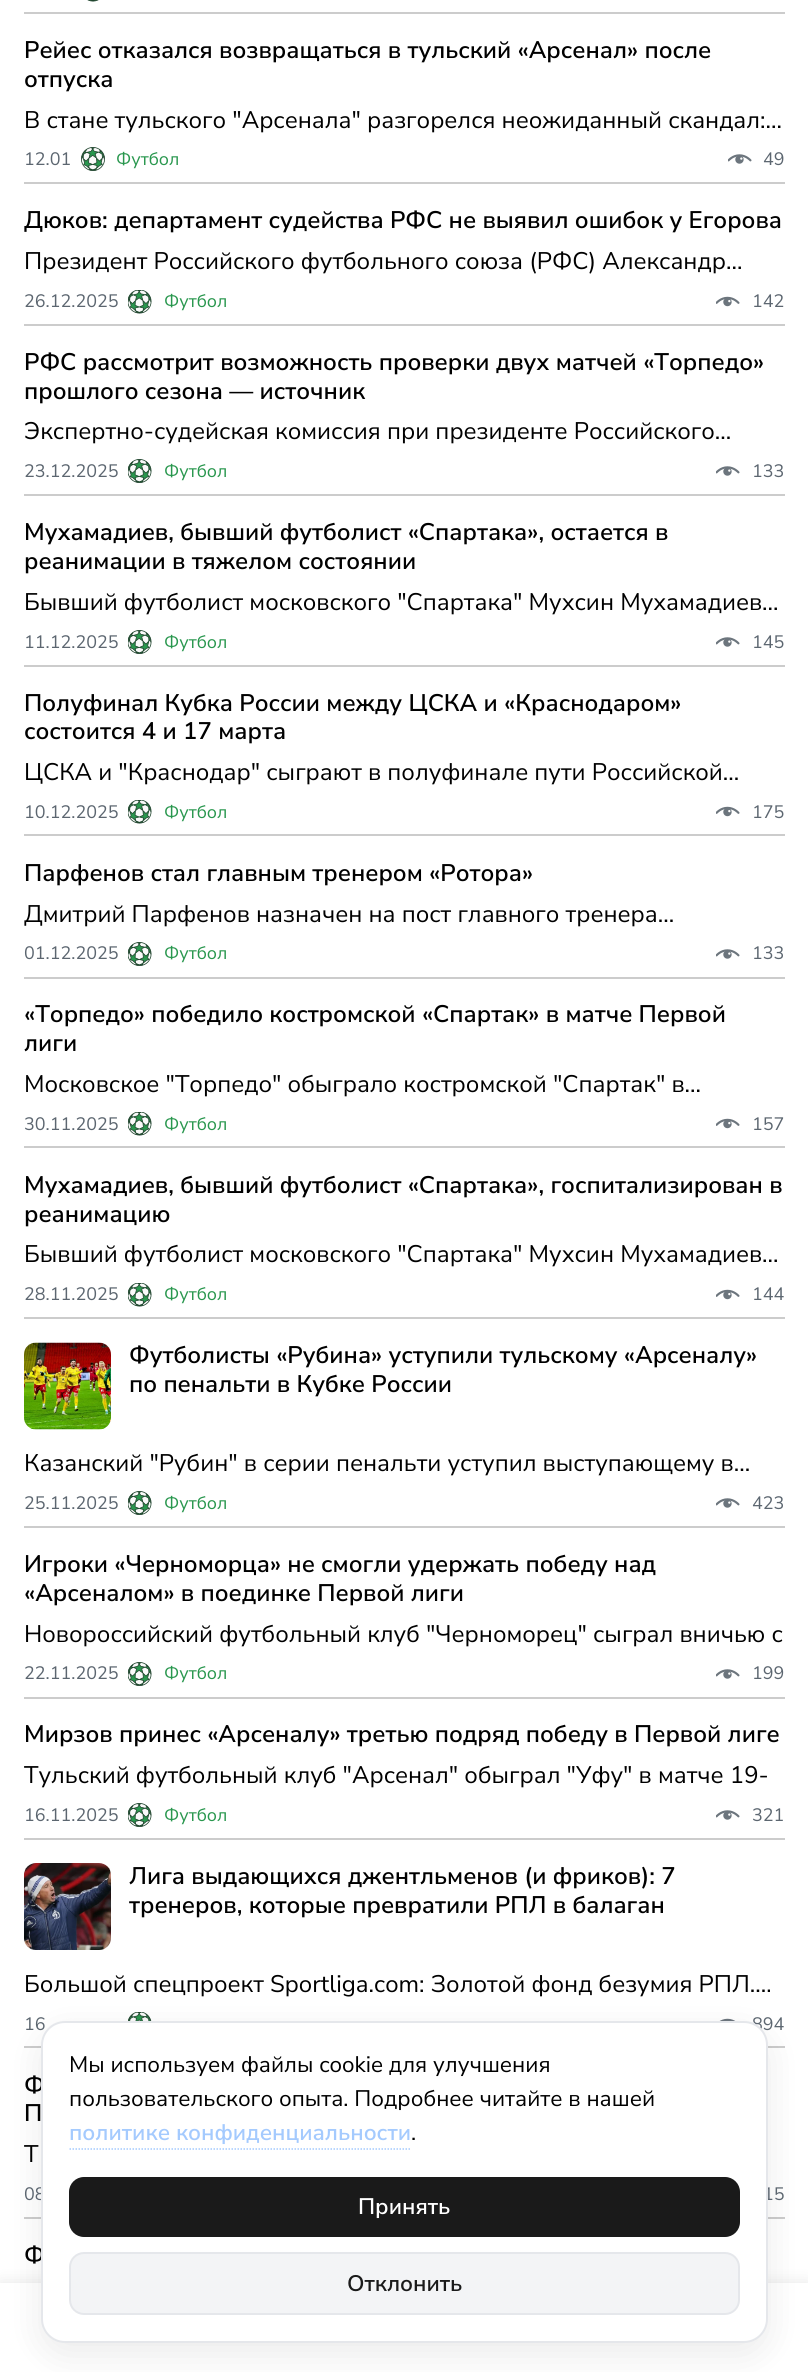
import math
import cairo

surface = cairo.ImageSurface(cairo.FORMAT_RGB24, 808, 2372)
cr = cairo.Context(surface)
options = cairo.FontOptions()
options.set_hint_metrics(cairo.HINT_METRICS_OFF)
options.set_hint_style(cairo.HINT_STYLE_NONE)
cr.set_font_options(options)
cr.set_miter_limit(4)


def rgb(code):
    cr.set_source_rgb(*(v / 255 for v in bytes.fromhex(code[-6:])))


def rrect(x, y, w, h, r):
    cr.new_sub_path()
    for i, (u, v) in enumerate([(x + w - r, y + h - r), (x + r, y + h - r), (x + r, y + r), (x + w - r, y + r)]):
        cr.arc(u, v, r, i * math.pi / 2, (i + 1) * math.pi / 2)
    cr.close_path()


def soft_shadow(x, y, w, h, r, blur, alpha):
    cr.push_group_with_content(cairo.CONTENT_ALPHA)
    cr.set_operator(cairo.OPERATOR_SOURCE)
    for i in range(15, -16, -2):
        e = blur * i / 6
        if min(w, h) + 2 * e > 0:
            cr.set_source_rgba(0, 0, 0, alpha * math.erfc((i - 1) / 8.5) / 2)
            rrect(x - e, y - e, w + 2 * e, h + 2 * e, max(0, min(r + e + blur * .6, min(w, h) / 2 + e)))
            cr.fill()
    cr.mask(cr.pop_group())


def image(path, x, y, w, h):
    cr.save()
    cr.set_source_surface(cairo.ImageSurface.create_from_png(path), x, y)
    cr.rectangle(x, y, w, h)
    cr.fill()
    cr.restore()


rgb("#ffffff")
cr.paint()
image("img/1.png", 87, 0, 12, 2)
rgb("#cccccc")
cr.rectangle(24, 12, 761, 2)
cr.fill()
image("img/2.png", 81, 147, 24, 24)
image("img/3.png", 728, 154, 24, 10)
cr.rectangle(24, 182, 761, 2)
cr.fill()
image("img/4.png", 128, 290, 24, 24)
image("img/5.png", 716, 296, 24, 11)
cr.rectangle(24, 324, 761, 2)
cr.fill()
image("img/6.png", 128, 459, 24, 24)
image("img/3.png", 716, 466, 24, 10)
cr.rectangle(24, 494, 761, 2)
cr.fill()
image("img/6.png", 128, 630, 24, 24)
image("img/3.png", 716, 637, 24, 10)
cr.rectangle(24, 665, 761, 2)
cr.fill()
image("img/4.png", 128, 800, 24, 24)
image("img/5.png", 716, 806, 24, 11)
cr.rectangle(24, 834, 761, 2)
cr.fill()
image("img/6.png", 128, 942, 24, 24)
image("img/3.png", 716, 949, 24, 10)
cr.rectangle(24, 977, 761, 2)
cr.fill()
image("img/4.png", 128, 1112, 24, 24)
image("img/5.png", 716, 1118, 24, 11)
cr.rectangle(24, 1146, 761, 2)
cr.fill()
image("img/4.png", 128, 1283, 24, 24)
image("img/5.png", 716, 1289, 24, 11)
cr.rectangle(24, 1317, 761, 2)
cr.fill()
image("img/7.png", 24, 1342, 87, 88)
image("img/6.png", 128, 1491, 24, 24)
image("img/3.png", 716, 1498, 24, 10)
cr.rectangle(24, 1526, 761, 2)
cr.fill()
image("img/6.png", 128, 1662, 24, 24)
image("img/3.png", 716, 1669, 24, 10)
cr.rectangle(24, 1697, 761, 2)
cr.fill()
image("img/6.png", 128, 1803, 24, 24)
image("img/3.png", 716, 1810, 24, 10)
cr.rectangle(24, 1838, 761, 2)
cr.fill()
image("img/8.png", 24, 1863, 87, 87)
image("img/9.png", 128, 2012, 24, 9)
image("img/10.png", 719, 2018, 17, 3)
cr.rectangle(24, 2046, 761, 2)
cr.fill()
cr.rectangle(24, 2217, 761, 2)
cr.fill()
rgb("#000000")
soft_shadow(0, 2283, 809, 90, 0, 7.5, 0.1)
rgb("#ffffff")
cr.rectangle(0, 2283, 808, 89)
cr.fill()
rgb("#000000")
soft_shadow(41, 2033, 727, 322, 24, 18, 0.08)
cr.select_font_face("Nunito Sans SemiBold")
cr.set_font_size(24)
rgb("#000000")
cr.move_to(24, 58)
cr.show_text("Рейес отказался возвращаться в тульский «Арсенал» после")
cr.move_to(24, 87)
cr.show_text("отпуска")
cr.select_font_face("Nunito Sans")
cr.move_to(24, 128)
cr.show_text("В стане тульского \"Арсенала\" разгорелся неожиданный скандал:…")
cr.set_font_size(18)
rgb("#5c6670")
cr.move_to(24, 165)
cr.show_text("12.01")
rgb("#29974e")
cr.move_to(116, 165)
cr.show_text("Футбол")
rgb("#5c6670")
cr.move_to(763, 165)
cr.show_text("49")
cr.select_font_face("Nunito Sans SemiBold")
cr.set_font_size(24)
rgb("#000000")
cr.move_to(24, 228)
cr.show_text("Дюков: департамент судейства РФС не выявил ошибок у Егорова")
cr.select_font_face("Nunito Sans")
cr.move_to(24, 269)
cr.show_text("Президент Российского футбольного союза (РФС) Александр…")
cr.set_font_size(18)
rgb("#5c6670")
cr.move_to(24, 307)
cr.show_text("26.12.2025")
rgb("#29974e")
cr.move_to(164, 307)
cr.show_text("Футбол")
rgb("#5c6670")
cr.move_to(752, 307)
cr.show_text("142")
cr.select_font_face("Nunito Sans SemiBold")
cr.set_font_size(24)
rgb("#000000")
cr.move_to(24, 370)
cr.show_text("РФС рассмотрит возможность проверки двух матчей «Торпедо»")
cr.move_to(24, 399)
cr.show_text("прошлого сезона — источник")
cr.select_font_face("Nunito Sans")
cr.move_to(24, 439)
cr.show_text("Экспертно-судейская комиссия при президенте Российского…")
cr.set_font_size(18)
rgb("#5c6670")
cr.move_to(24, 477)
cr.show_text("23.12.2025")
rgb("#29974e")
cr.move_to(164, 477)
cr.show_text("Футбол")
rgb("#5c6670")
cr.move_to(752, 477)
cr.show_text("133")
cr.select_font_face("Nunito Sans SemiBold")
cr.set_font_size(24)
rgb("#000000")
cr.move_to(24, 540)
cr.show_text("Мухамадиев, бывший футболист «Спартака», остается в")
cr.move_to(24, 569)
cr.show_text("реанимации в тяжелом состоянии")
cr.select_font_face("Nunito Sans")
cr.move_to(24, 610)
cr.show_text("Бывший футболист московского \"Спартака\" Мухсин Мухамадиев…")
cr.set_font_size(18)
rgb("#5c6670")
cr.move_to(24, 648)
cr.show_text("11.12.2025")
rgb("#29974e")
cr.move_to(164, 648)
cr.show_text("Футбол")
rgb("#5c6670")
cr.move_to(752, 648)
cr.show_text("145")
cr.select_font_face("Nunito Sans SemiBold")
cr.set_font_size(24)
rgb("#000000")
cr.move_to(24, 711)
cr.show_text("Полуфинал Кубка России между ЦСКА и «Краснодаром»")
cr.move_to(24, 739)
cr.show_text("состоится 4 и 17 марта")
cr.select_font_face("Nunito Sans")
cr.move_to(24, 780)
cr.show_text("ЦСКА и \"Краснодар\" сыграют в полуфинале пути Российской…")
cr.set_font_size(18)
rgb("#5c6670")
cr.move_to(24, 818)
cr.show_text("10.12.2025")
rgb("#29974e")
cr.move_to(164, 818)
cr.show_text("Футбол")
rgb("#5c6670")
cr.move_to(752, 818)
cr.show_text("175")
cr.select_font_face("Nunito Sans SemiBold")
cr.set_font_size(24)
rgb("#000000")
cr.move_to(24, 881)
cr.show_text("Парфенов стал главным тренером «Ротора»")
cr.select_font_face("Nunito Sans")
cr.move_to(24, 922)
cr.show_text("Дмитрий Парфенов назначен на пост главного тренера…")
cr.set_font_size(18)
rgb("#5c6670")
cr.move_to(24, 959)
cr.show_text("01.12.2025")
rgb("#29974e")
cr.move_to(164, 959)
cr.show_text("Футбол")
rgb("#5c6670")
cr.move_to(752, 959)
cr.show_text("133")
cr.select_font_face("Nunito Sans SemiBold")
cr.set_font_size(24)
rgb("#000000")
cr.move_to(24, 1022)
cr.show_text("«Торпедо» победило костромской «Спартак» в матче Первой")
cr.move_to(24, 1051)
cr.show_text("лиги")
cr.select_font_face("Nunito Sans")
cr.move_to(24, 1092)
cr.show_text("Московское \"Торпедо\" обыграло костромской \"Спартак\" в…")
cr.set_font_size(18)
rgb("#5c6670")
cr.move_to(24, 1130)
cr.show_text("30.11.2025")
rgb("#29974e")
cr.move_to(164, 1130)
cr.show_text("Футбол")
rgb("#5c6670")
cr.move_to(752, 1130)
cr.show_text("157")
cr.select_font_face("Nunito Sans SemiBold")
cr.set_font_size(24)
rgb("#000000")
cr.move_to(24, 1193)
cr.show_text("Мухамадиев, бывший футболист «Спартака», госпитализирован в")
cr.move_to(24, 1222)
cr.show_text("реанимацию")
cr.select_font_face("Nunito Sans")
cr.move_to(24, 1262)
cr.show_text("Бывший футболист московского \"Спартака\" Мухсин Мухамадиев…")
cr.set_font_size(18)
rgb("#5c6670")
cr.move_to(24, 1300)
cr.show_text("28.11.2025")
rgb("#29974e")
cr.move_to(164, 1300)
cr.show_text("Футбол")
rgb("#5c6670")
cr.move_to(752, 1300)
cr.show_text("144")
cr.select_font_face("Nunito Sans SemiBold")
cr.set_font_size(24)
rgb("#000000")
cr.move_to(129, 1363)
cr.show_text("Футболисты «Рубина» уступили тульскому «Арсеналу»")
cr.move_to(129, 1392)
cr.show_text("по пенальти в Кубке России")
cr.select_font_face("Nunito Sans")
cr.move_to(24, 1471)
cr.show_text("Казанский \"Рубин\" в серии пенальти уступил выступающему в…")
cr.set_font_size(18)
rgb("#5c6670")
cr.move_to(24, 1509)
cr.show_text("25.11.2025")
rgb("#29974e")
cr.move_to(164, 1509)
cr.show_text("Футбол")
rgb("#5c6670")
cr.move_to(752, 1509)
cr.show_text("423")
cr.select_font_face("Nunito Sans SemiBold")
cr.set_font_size(24)
rgb("#000000")
cr.move_to(24, 1572)
cr.show_text("Игроки «Черноморца» не смогли удержать победу над")
cr.move_to(24, 1601)
cr.show_text("«Арсеналом» в поединке Первой лиги")
cr.select_font_face("Nunito Sans")
cr.move_to(24, 1642)
cr.show_text("Новороссийский футбольный клуб \"Черноморец\" сыграл вничью с")
cr.set_font_size(18)
rgb("#5c6670")
cr.move_to(24, 1679)
cr.show_text("22.11.2025")
rgb("#29974e")
cr.move_to(164, 1679)
cr.show_text("Футбол")
rgb("#5c6670")
cr.move_to(752, 1679)
cr.show_text("199")
cr.select_font_face("Nunito Sans SemiBold")
cr.set_font_size(24)
rgb("#000000")
cr.move_to(24, 1742)
cr.show_text("Мирзов принес «Арсеналу» третью подряд победу в Первой лиге")
cr.select_font_face("Nunito Sans")
cr.move_to(24, 1783)
cr.show_text("Тульский футбольный клуб \"Арсенал\" обыграл \"Уфу\" в матче 19-")
cr.set_font_size(18)
rgb("#5c6670")
cr.move_to(24, 1821)
cr.show_text("16.11.2025")
rgb("#29974e")
cr.move_to(164, 1821)
cr.show_text("Футбол")
rgb("#5c6670")
cr.move_to(752, 1821)
cr.show_text("321")
cr.select_font_face("Nunito Sans SemiBold")
cr.set_font_size(24)
rgb("#000000")
cr.move_to(129, 1884)
cr.show_text("Лига выдающихся джентльменов (и фриков): 7")
cr.move_to(129, 1913)
cr.show_text("тренеров, которые превратили РПЛ в балаган")
cr.select_font_face("Nunito Sans")
cr.move_to(24, 1992)
cr.show_text("Большой спецпроект Sportliga.com: Золотой фонд безумия РПЛ.…")
cr.set_font_size(18)
rgb("#5c6670")
cr.move_to(24, 2030)
cr.show_text("16")
cr.move_to(752, 2030)
cr.show_text("894")
cr.select_font_face("Nunito Sans SemiBold")
cr.set_font_size(24)
rgb("#000000")
cr.move_to(24, 2093)
cr.show_text("Ф")
cr.move_to(24, 2121)
cr.show_text("П")
cr.select_font_face("Nunito Sans")
cr.move_to(24, 2162)
cr.show_text("Т")
cr.set_font_size(18)
rgb("#5c6670")
cr.move_to(24, 2200)
cr.show_text("08")
cr.move_to(763, 2200)
cr.show_text("15")
cr.select_font_face("Nunito Sans SemiBold")
cr.set_font_size(24)
rgb("#000000")
cr.move_to(24, 2263)
cr.show_text("Ф")
rgb("#ffffff")
rrect(42, 2022, 725, 320, 23)
cr.fill_preserve()
rgb("#e5e7eb")
cr.stroke()
cr.select_font_face("Nunito Sans")
cr.set_font_size(22.5)
rgb("#000000")
cr.move_to(69, 2072)
cr.show_text("Мы используем файлы cookie для улучшения")
cr.move_to(69, 2106)
cr.show_text("пользовательского опыта. Подробнее читайте в нашей")
cr.select_font_face("Nunito Sans SemiBold")
rgb("#a4cafe")
cr.move_to(69, 2140)
cr.show_text("политике конфиденциальности")
cr.new_path()
cr.move_to(69.5, 2149)
cr.line_to(411.5, 2149)
cr.set_line_width(1.5)
cr.set_dash([1.5, 1.5])
cr.stroke()
cr.select_font_face("Nunito Sans")
rgb("#000000")
cr.move_to(411, 2140)
cr.show_text(".")
rgb("#1a1a1a")
rrect(69, 2177, 671, 60, 15)
cr.fill()
cr.select_font_face("Nunito Sans SemiBold")
rgb("#ffffff")
cr.move_to(358, 2214)
cr.show_text("Принять")
rgb("#f3f4f6")
rrect(70, 2253, 669, 61, 14)
cr.fill_preserve()
rgb("#e5e7eb")
cr.set_line_width(2)
cr.set_dash([])
cr.stroke()
rgb("#1a1a1a")
cr.move_to(347, 2291)
cr.show_text("Отклонить")
surface.write_to_png("page.png")
